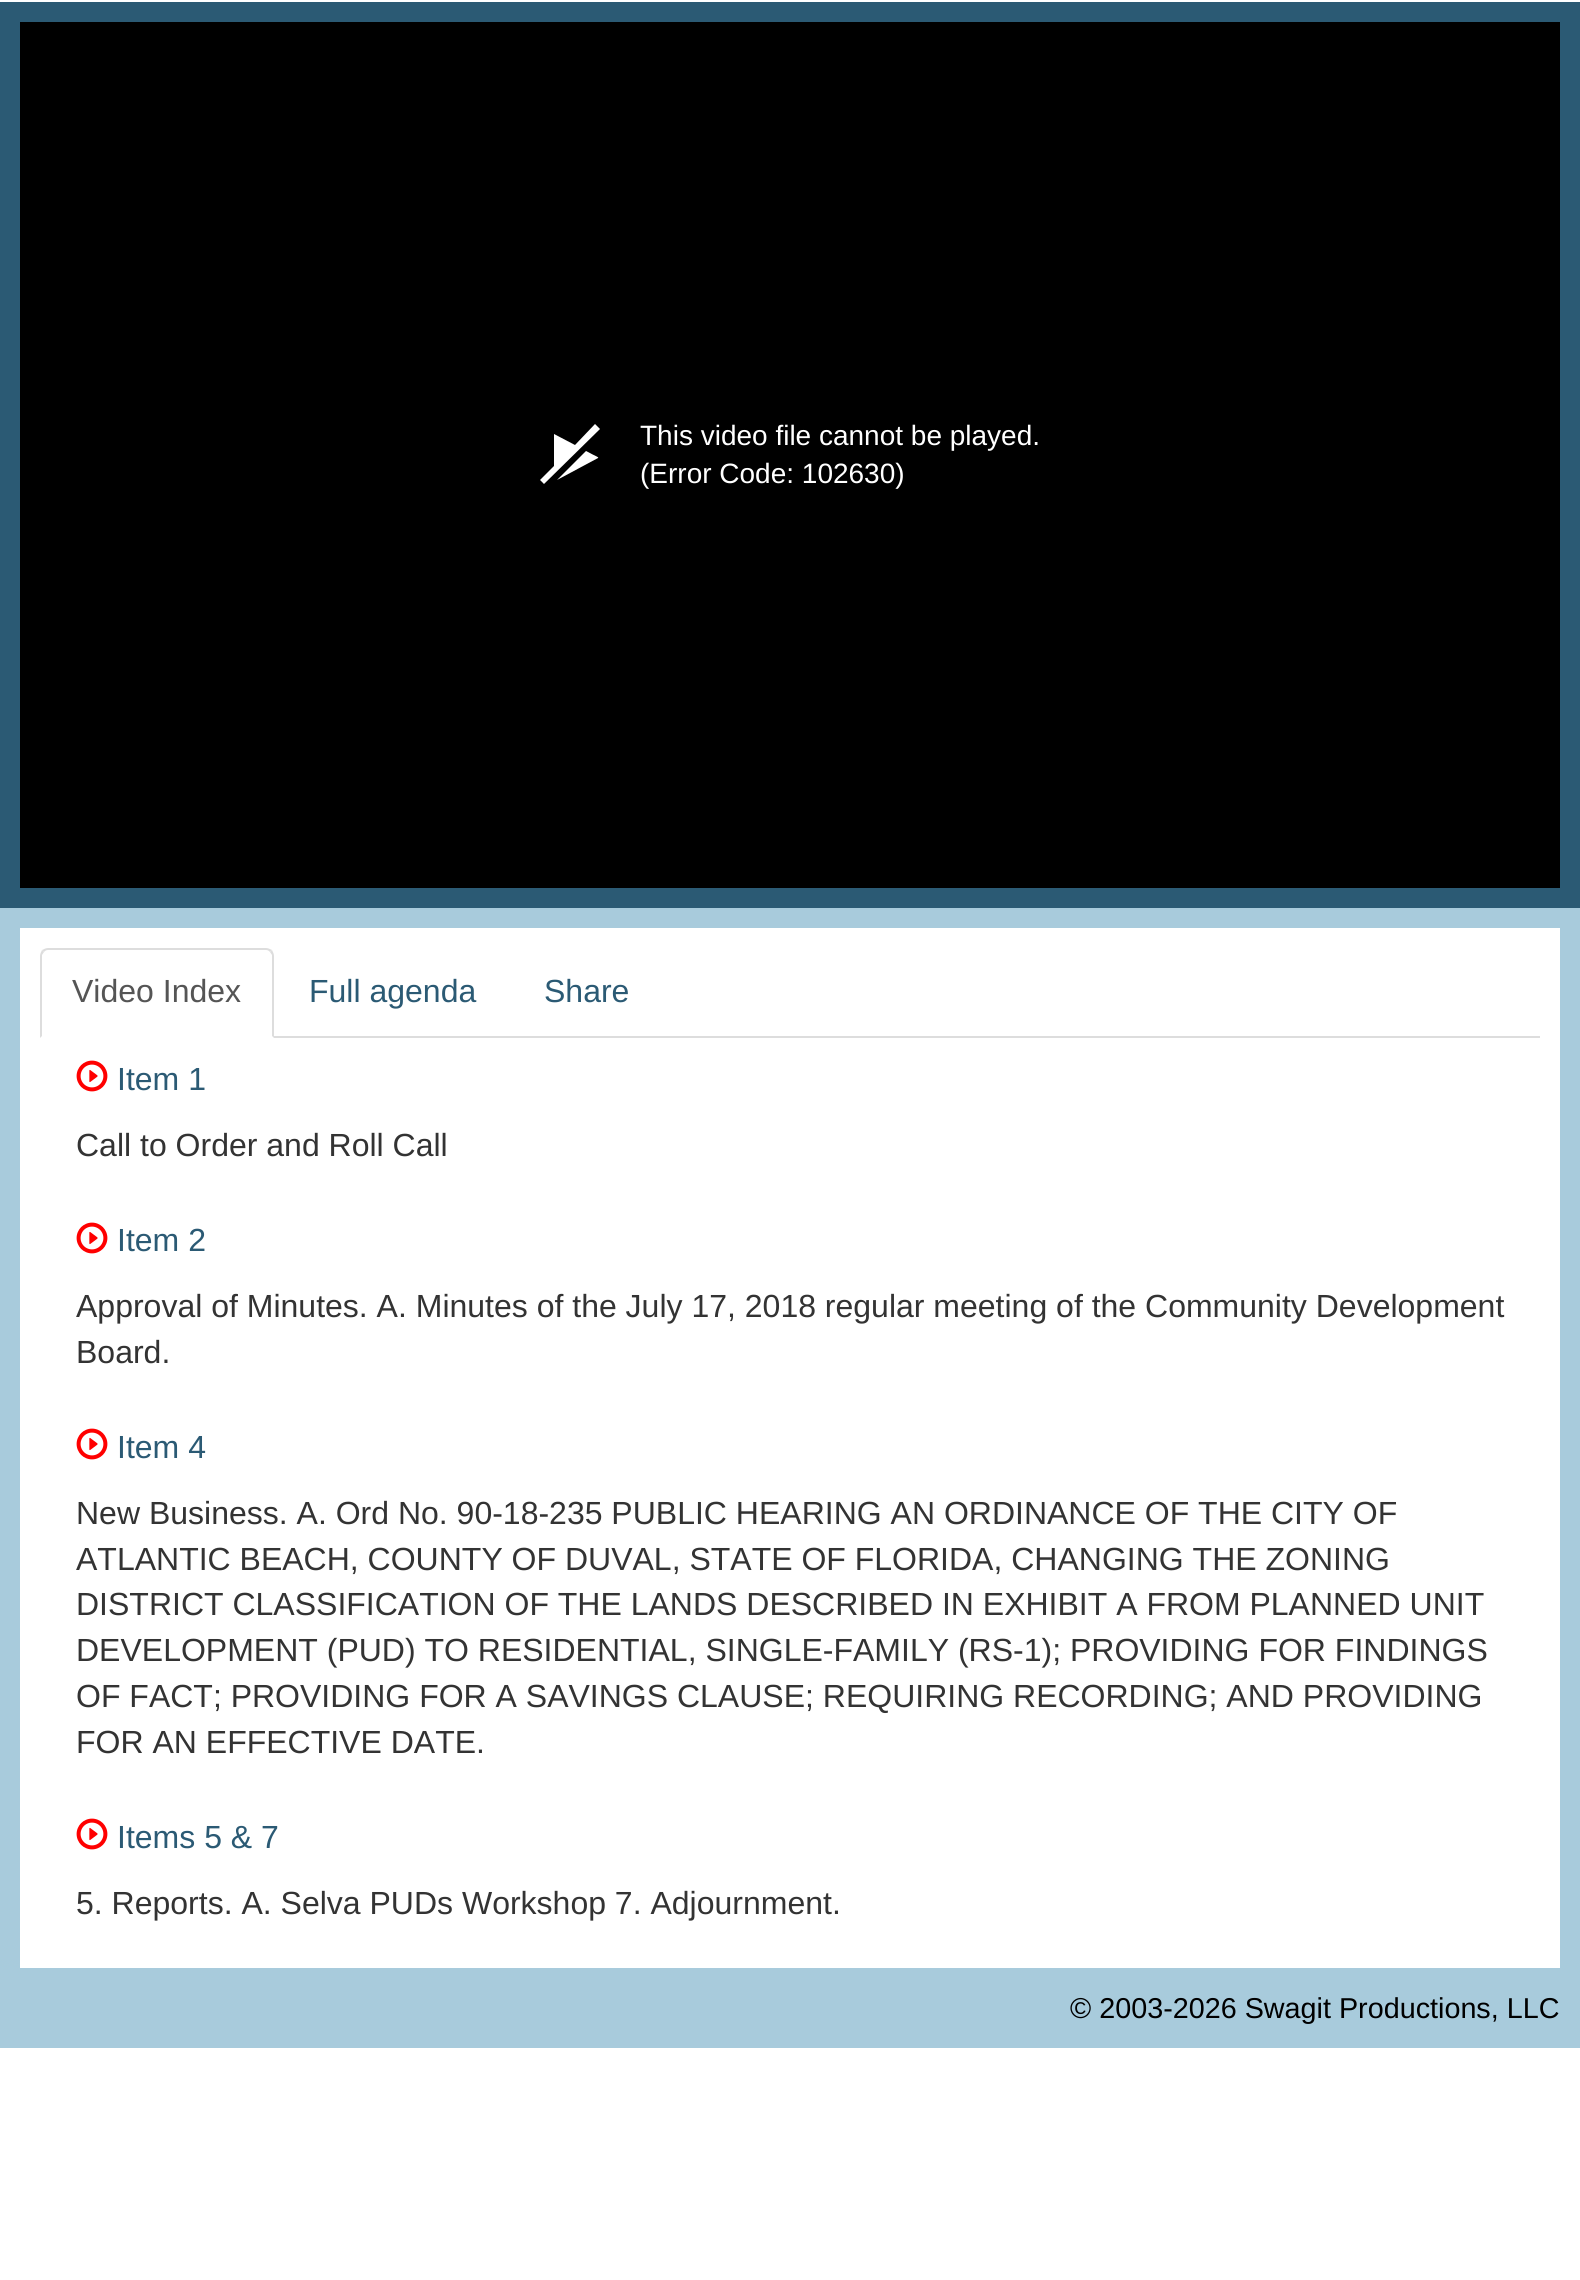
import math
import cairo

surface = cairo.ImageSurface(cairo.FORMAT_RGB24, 1580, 2280)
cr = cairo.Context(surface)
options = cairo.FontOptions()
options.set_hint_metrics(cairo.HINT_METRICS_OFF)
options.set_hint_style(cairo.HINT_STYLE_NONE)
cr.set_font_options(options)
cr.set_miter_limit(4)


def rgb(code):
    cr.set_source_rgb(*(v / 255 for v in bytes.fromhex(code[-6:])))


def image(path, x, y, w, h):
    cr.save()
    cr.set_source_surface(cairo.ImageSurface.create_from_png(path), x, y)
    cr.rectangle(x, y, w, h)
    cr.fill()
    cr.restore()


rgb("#ffffff")
cr.paint()
rgb("#2b5a74")
cr.rectangle(0, 2, 1580, 906)
cr.fill()
rgb("#000000")
cr.rectangle(20, 22, 1540, 866)
cr.fill()
rgb("#ffffff")
cr.new_path()
cr.move_to(598, 458)
cr.line_to(557, 480)
cr.line_to(586, 451)
cr.curve_to(597, 457, 599, 457, 598, 458)
cr.close_path()
cr.move_to(595, 424)
cr.line_to(575, 445)
cr.line_to(554, 434)
cr.line_to(554, 466)
cr.line_to(540, 480)
cr.line_to(544, 484)
cr.line_to(600, 429)
cr.close_path()
cr.fill()
for x, y, w, h, color in [
    (0, 908, 1580, 1140, "#a8cbdc"),
    (20, 928, 1540, 1040, "#ffffff"),
    (274, 1036, 1266, 2, "#dddddd"),
]:
    rgb(color)
    cr.rectangle(x, y, w, h)
    cr.fill()
cr.new_path()
cr.move_to(48, 948)
cr.curve_to(46, 948, 44, 949, 42, 950)
cr.line_to(44, 952)
cr.curve_to(45, 951, 46, 950, 48, 950)
cr.line_to(266, 950)
cr.curve_to(268, 950, 269, 951, 270, 952)
cr.line_to(272, 950)
cr.curve_to(270, 949, 268, 948, 266, 948)
cr.close_path()
cr.fill()
cr.new_path()
cr.move_to(274, 1038)
cr.line_to(274, 956)
cr.curve_to(274, 954, 273, 952, 272, 950)
cr.line_to(270, 952)
cr.line_to(272, 955)
cr.line_to(272, 1036)
cr.close_path()
cr.fill()
cr.new_path()
cr.move_to(40, 1038)
cr.line_to(42, 1036)
cr.line_to(42, 955)
cr.line_to(44, 952)
cr.line_to(42, 950)
cr.curve_to(41, 952, 40, 954, 40, 956)
cr.close_path()
cr.fill()
image("img/1.png", 76, 1060, 32, 32)
image("img/1.png", 76, 1222, 32, 32)
image("img/1.png", 76, 1428, 32, 32)
image("img/1.png", 76, 1818, 32, 32)
cr.select_font_face("Liberation Sans")
cr.set_font_size(28)
rgb("#ffffff")
cr.move_to(640, 445)
cr.show_text("This video file cannot be played.")
cr.move_to(640, 483)
cr.show_text("(Error Code: 102630)")
cr.set_font_size(32)
rgb("#555555")
cr.move_to(72, 1002)
cr.show_text("Video Index")
rgb("#2b5a74")
for x, y, s in [
    (309, 1002, "Full agenda"),
    (544, 1002, "Share"),
    (117, 1090, "Item 1"),
]:
    cr.move_to(x, y)
    cr.show_text(s)
rgb("#333333")
cr.move_to(76, 1156)
cr.show_text("Call to Order and Roll Call")
rgb("#2b5a74")
cr.move_to(117, 1251)
cr.show_text("Item 2")
rgb("#333333")
cr.move_to(76, 1317)
cr.show_text("Approval of Minutes. A. Minutes of the July 17, 2018 regular meeting of the Community Development")
cr.move_to(76, 1363)
cr.show_text("Board.")
rgb("#2b5a74")
cr.move_to(117, 1458)
cr.show_text("Item 4")
rgb("#333333")
for x, y, s in [
    (76, 1524, "New Business. A. Ord No. 90-18-235 PUBLIC HEARING AN ORDINANCE OF THE CITY OF"),
    (76, 1570, "ATLANTIC BEACH, COUNTY OF DUVAL, STATE OF FLORIDA, CHANGING THE ZONING"),
    (76, 1615, "DISTRICT CLASSIFICATION OF THE LANDS DESCRIBED IN EXHIBIT A FROM PLANNED UNIT"),
    (76, 1661, "DEVELOPMENT (PUD) TO RESIDENTIAL, SINGLE-FAMILY (RS-1); PROVIDING FOR FINDINGS"),
    (76, 1707, "OF FACT; PROVIDING FOR A SAVINGS CLAUSE; REQUIRING RECORDING; AND PROVIDING"),
    (76, 1753, "FOR AN EFFECTIVE DATE."),
]:
    cr.move_to(x, y)
    cr.show_text(s)
rgb("#2b5a74")
cr.move_to(117, 1848)
cr.show_text("Items 5 & 7")
rgb("#333333")
cr.move_to(76, 1914)
cr.show_text("5. Reports. A. Selva PUDs Workshop 7. Adjournment.")
cr.set_font_size(28.75)
rgb("#000000")
cr.move_to(1070, 2018)
cr.show_text("© 2003-2026 Swagit Productions, LLC")
surface.write_to_png("page.png")
